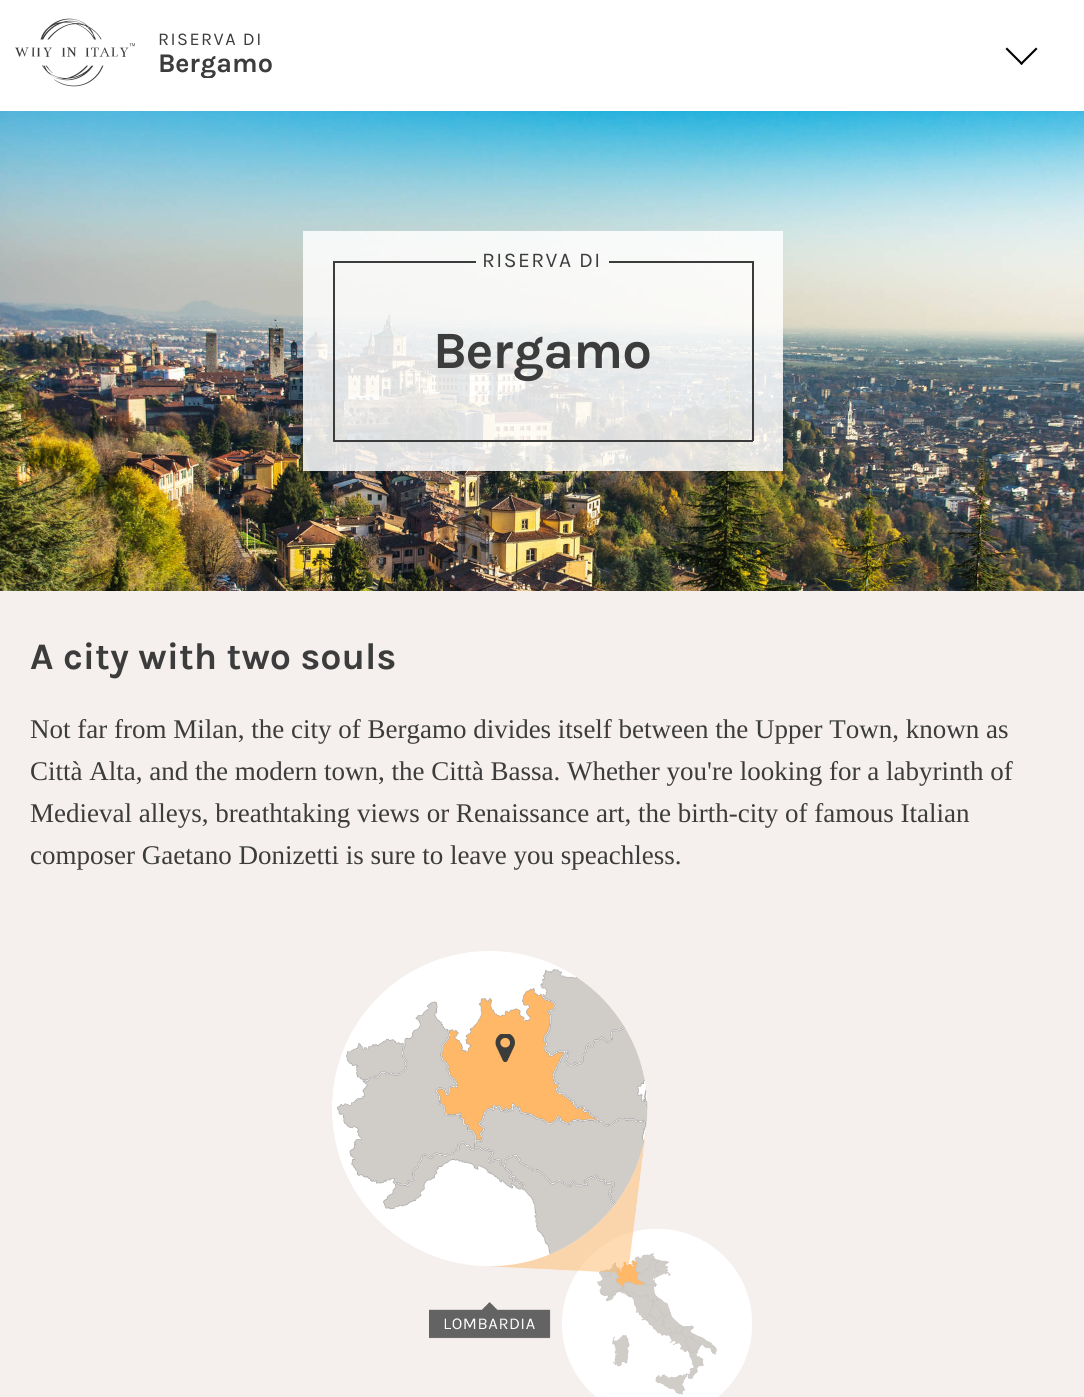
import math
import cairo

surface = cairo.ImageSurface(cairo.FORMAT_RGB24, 1084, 1397)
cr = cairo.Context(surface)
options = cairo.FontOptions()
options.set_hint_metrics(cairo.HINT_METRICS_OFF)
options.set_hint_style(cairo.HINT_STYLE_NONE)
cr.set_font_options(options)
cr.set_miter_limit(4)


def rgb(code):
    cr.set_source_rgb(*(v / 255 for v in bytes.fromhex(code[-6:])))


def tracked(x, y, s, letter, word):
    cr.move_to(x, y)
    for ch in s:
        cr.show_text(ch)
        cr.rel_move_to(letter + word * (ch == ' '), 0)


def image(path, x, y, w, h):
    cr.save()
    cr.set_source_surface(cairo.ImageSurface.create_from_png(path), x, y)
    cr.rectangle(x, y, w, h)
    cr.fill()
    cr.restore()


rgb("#f5f0ed")
cr.paint()
rgb("#ffffff")
cr.rectangle(0, 0, 1084, 111)
cr.fill()
image("img/1.png", 15, 18, 120, 69)
rgb("#000000")
cr.new_path()
cr.move_to(1007, 47.5)
cr.line_to(1023, 63.5)
cr.line_to(1021.5, 65)
cr.line_to(1005.5, 49)
cr.close_path()
cr.fill()
cr.new_path()
cr.move_to(1020, 63.5)
cr.line_to(1036, 47.5)
cr.line_to(1037.5, 49)
cr.line_to(1021.5, 65)
cr.close_path()
cr.fill()
image("img/2.png", 0, 111, 1084, 480)
cr.set_source_rgba(1, 1, 1, 0.85)
cr.rectangle(303, 231, 480, 240)
cr.fill()
rgb("#3c3c3c")
cr.rectangle(333, 261, 143, 2)
cr.rectangle(609, 261, 144, 2)
cr.rectangle(752, 261, 2, 180)
cr.rectangle(333, 440, 420, 2)
cr.rectangle(333, 261, 2, 180)
cr.fill()
image("img/3.png", 332, 951, 420, 446)
image("img/4.png", 495, 1034, 20, 28)
cr.select_font_face("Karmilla")
cr.set_font_size(18)
tracked(158, 45, "RISERVA DI", 1.5, 0)
cr.save()
cr.rectangle(158, 0, 145, 78)
cr.clip()
cr.select_font_face("Karmilla", cairo.FONT_SLANT_NORMAL, cairo.FONT_WEIGHT_BOLD)
cr.set_font_size(27)
cr.move_to(158, 72)
cr.show_text("Bergamo")
cr.restore()
cr.set_font_size(21)
tracked(482, 267, "RISERVA DI", 1.5, 0)
cr.select_font_face("Karmilla", cairo.FONT_SLANT_NORMAL, cairo.FONT_WEIGHT_BOLD)
cr.set_font_size(52.5)
tracked(433, 368, "Bergamo", -0.75, 0)
cr.set_font_size(37.5)
cr.move_to(30, 669)
cr.show_text("A city with two souls")
cr.select_font_face("Liberation Serif")
cr.set_font_size(27)
for x, y, s in [
    (30, 738, "Not far from Milan, the city of Bergamo divides itself between the Upper Town, known as"),
    (30, 780, "Città Alta, and the modern town, the Città Bassa. Whether you're looking for a labyrinth of"),
    (30, 822, "Medieval alleys, breathtaking views or Renaissance art, the birth-city of famous Italian"),
    (30, 864, "composer Gaetano Donizetti is sure to leave you speachless."),
]:
    cr.move_to(x, y)
    cr.show_text(s)
surface.write_to_png("page.png")
